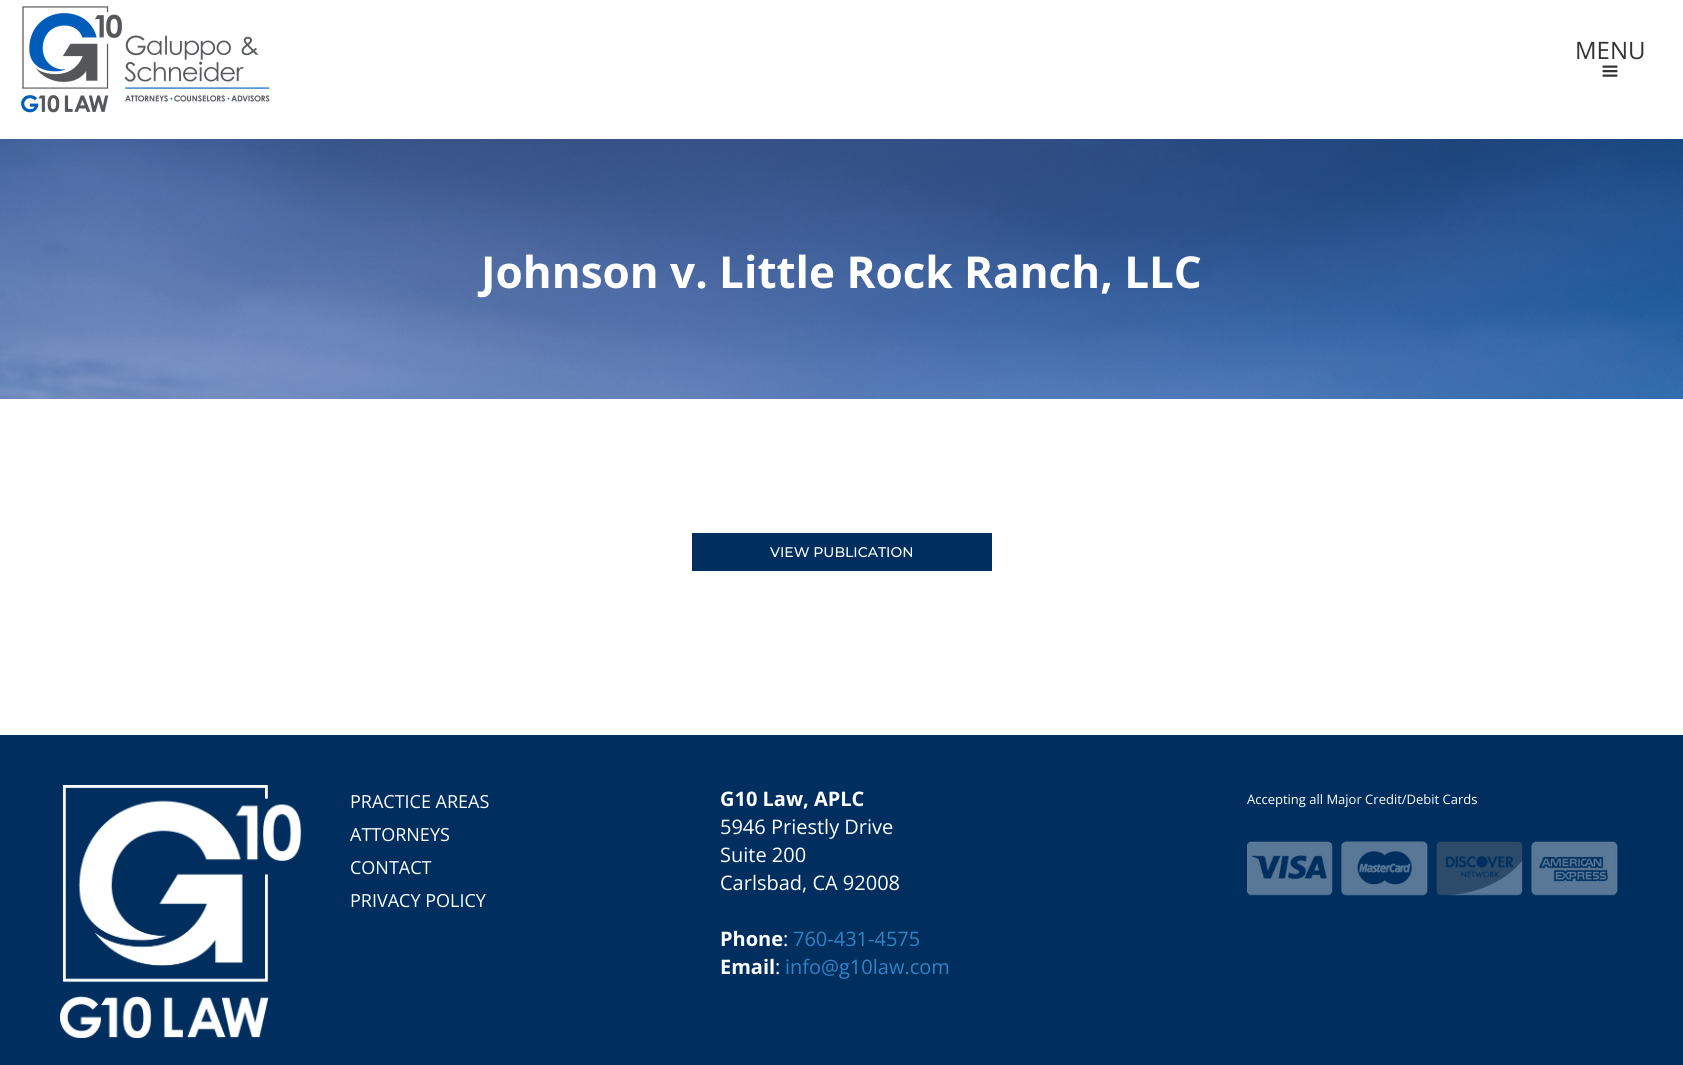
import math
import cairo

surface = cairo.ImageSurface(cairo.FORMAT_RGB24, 1683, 1065)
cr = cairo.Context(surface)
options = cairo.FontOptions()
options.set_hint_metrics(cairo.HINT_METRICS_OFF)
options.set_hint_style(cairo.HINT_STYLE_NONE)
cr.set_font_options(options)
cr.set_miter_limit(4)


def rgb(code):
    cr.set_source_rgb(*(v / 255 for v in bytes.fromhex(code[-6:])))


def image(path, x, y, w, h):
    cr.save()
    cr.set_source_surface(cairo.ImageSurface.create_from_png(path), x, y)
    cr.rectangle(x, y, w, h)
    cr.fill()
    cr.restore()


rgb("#ffffff")
cr.paint()
image("img/1.png", 21, 6, 249, 107)
image("img/2.png", 1602, 65, 16, 12)
image("img/3.png", 0, 139, 1683, 260)
rgb("#002f5f")
cr.rectangle(692, 533, 300, 38)
cr.fill()
cr.rectangle(0, 735, 1683, 330)
cr.fill()
image("img/4.png", 60, 785, 242, 253)
image("img/5.png", 1247, 841, 371, 55)
cr.select_font_face("Open Sans")
cr.set_font_size(24)
rgb("#333333")
cr.move_to(1575, 59)
cr.show_text("MENU")
cr.select_font_face("Open Sans", cairo.FONT_SLANT_NORMAL, cairo.FONT_WEIGHT_BOLD)
cr.set_font_size(44)
rgb("#ffffff")
cr.move_to(481, 288)
cr.show_text("Johnson v. Little Rock Ranch, LLC")
cr.select_font_face("Montserrat Medium")
cr.set_font_size(14)
cr.move_to(770, 557)
cr.show_text("VIEW PUBLICATION")
cr.select_font_face("Open Sans")
cr.set_font_size(18)
for x, y, s in [
    (350, 808, "PRACTICE AREAS"),
    (350, 841, "ATTORNEYS"),
    (350, 874, "CONTACT"),
    (350, 907, "PRIVACY POLICY"),
]:
    cr.move_to(x, y)
    cr.show_text(s)
cr.select_font_face("Open Sans", cairo.FONT_SLANT_NORMAL, cairo.FONT_WEIGHT_BOLD)
cr.set_font_size(20)
cr.move_to(720, 806)
cr.show_text("G10 Law, APLC")
cr.select_font_face("Open Sans")
for x, y, s in [
    (720, 834, "5946 Priestly Drive"),
    (720, 862, "Suite 200"),
    (720, 890, "Carlsbad, CA 92008"),
]:
    cr.move_to(x, y)
    cr.show_text(s)
cr.select_font_face("Open Sans", cairo.FONT_SLANT_NORMAL, cairo.FONT_WEIGHT_BOLD)
cr.move_to(720, 946)
cr.show_text("Phone")
cr.select_font_face("Open Sans")
cr.move_to(783, 946)
cr.show_text(":")
rgb("#3282c0")
cr.move_to(793, 946)
cr.show_text("760-431-4575")
cr.select_font_face("Open Sans", cairo.FONT_SLANT_NORMAL, cairo.FONT_WEIGHT_BOLD)
rgb("#ffffff")
cr.move_to(720, 974)
cr.show_text("Email")
cr.select_font_face("Open Sans")
cr.move_to(775, 974)
cr.show_text(":")
rgb("#3282c0")
cr.move_to(785, 974)
cr.show_text("info@g10law.com")
cr.set_font_size(13)
rgb("#ffffff")
cr.move_to(1247, 804)
cr.show_text("Accepting all Major Credit/Debit Cards")
surface.write_to_png("page.png")
